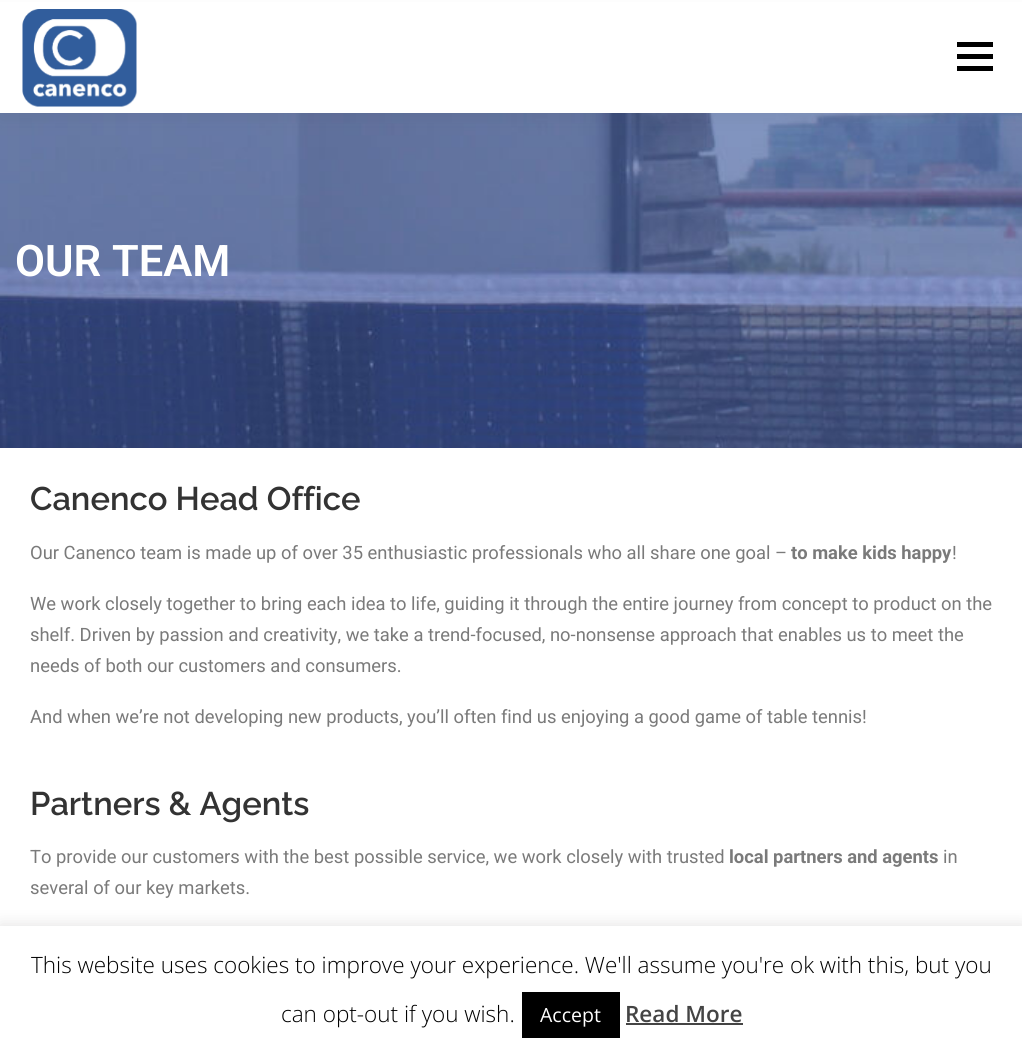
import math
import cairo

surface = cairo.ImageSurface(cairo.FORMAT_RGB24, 1022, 1056)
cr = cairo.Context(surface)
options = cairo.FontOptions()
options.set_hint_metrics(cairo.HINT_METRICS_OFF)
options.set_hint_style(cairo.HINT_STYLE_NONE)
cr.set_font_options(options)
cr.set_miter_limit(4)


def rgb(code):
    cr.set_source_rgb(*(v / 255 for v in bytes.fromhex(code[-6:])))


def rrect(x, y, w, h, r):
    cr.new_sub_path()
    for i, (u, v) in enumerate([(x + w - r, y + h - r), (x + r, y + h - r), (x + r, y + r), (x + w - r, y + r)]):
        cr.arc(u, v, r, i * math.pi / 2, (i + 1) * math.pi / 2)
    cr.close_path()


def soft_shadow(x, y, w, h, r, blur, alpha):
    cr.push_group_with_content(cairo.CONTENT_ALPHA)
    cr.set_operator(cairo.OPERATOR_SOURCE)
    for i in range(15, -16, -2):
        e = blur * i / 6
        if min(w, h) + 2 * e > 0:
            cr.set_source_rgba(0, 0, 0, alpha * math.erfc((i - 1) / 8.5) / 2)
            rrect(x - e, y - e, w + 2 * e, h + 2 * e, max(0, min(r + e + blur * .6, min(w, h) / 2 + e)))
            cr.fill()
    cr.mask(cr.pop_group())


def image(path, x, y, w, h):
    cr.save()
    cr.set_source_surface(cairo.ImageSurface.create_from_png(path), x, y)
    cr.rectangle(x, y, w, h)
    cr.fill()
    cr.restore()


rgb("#ffffff")
cr.paint()
image("img/2.png", 0, 113, 1022, 335)
rgb("#323232")
soft_shadow(0, 8, 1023, 112, 0, 7.5, 0.06)
rgb("#ffffff")
cr.rectangle(0, 2, 1022, 111)
cr.fill()
image("img/1.png", 22, 9, 115, 98)
for x, y, w, h, color in [
    (957, 54, 36, 5, "#000000"),
    (957, 42, 36, 5, "#000000"),
    (957, 66, 36, 5, "#000000"),
]:
    rgb(color)
    cr.rectangle(x, y, w, h)
    cr.fill()
rgb("#acabab")
soft_shadow(0, 924, 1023, 131, 0, 7.5, 0.3)
for x, y, w, h, color in [
    (0, 926, 1022, 130, "#ffffff"),
    (522, 992, 98, 46, "#000000"),
    (626, 1023, 117, 2, "#444444"),
]:
    rgb(color)
    cr.rectangle(x, y, w, h)
    cr.fill()
cr.select_font_face("Roboto SemiBold")
cr.set_font_size(43.5)
rgb("#ffffff")
cr.move_to(15, 276)
cr.show_text("OUR TEAM")
cr.select_font_face("Raleway SemiBold")
cr.set_font_size(32.75)
rgb("#333333")
cr.move_to(30, 510)
cr.show_text("Canenco Head Office")
cr.select_font_face("Roboto")
cr.set_font_size(18.38)
rgb("#7a7a7a")
cr.move_to(30, 559)
cr.show_text("Our Canenco team is made up of over 35 enthusiastic professionals who all share one goal –")
cr.select_font_face("Roboto", cairo.FONT_SLANT_NORMAL, cairo.FONT_WEIGHT_BOLD)
cr.move_to(791, 559)
cr.show_text("to make kids happy")
cr.select_font_face("Roboto")
for x, y, s in [
    (952, 559, "!"),
    (30, 610, "We work closely together to bring each idea to life, guiding it through the entire journey from concept to product on the"),
    (30, 641, "shelf. Driven by passion and creativity, we take a trend-focused, no-nonsense approach that enables us to meet the"),
    (30, 672, "needs of both our customers and consumers."),
    (30, 723, "And when we’re not developing new products, you’ll often find us enjoying a good game of table tennis!"),
]:
    cr.move_to(x, y)
    cr.show_text(s)
cr.select_font_face("Raleway SemiBold")
cr.set_font_size(32.75)
rgb("#333333")
cr.move_to(30, 815)
cr.show_text("Partners & Agents")
cr.select_font_face("Roboto")
cr.set_font_size(18.38)
rgb("#7a7a7a")
cr.move_to(30, 863)
cr.show_text("To provide our customers with the best possible service, we work closely with trusted")
cr.select_font_face("Roboto", cairo.FONT_SLANT_NORMAL, cairo.FONT_WEIGHT_BOLD)
cr.move_to(729, 863)
cr.show_text("local partners and agents")
cr.select_font_face("Roboto")
cr.move_to(943, 863)
cr.show_text("in")
cr.move_to(30, 894)
cr.show_text("several of our key markets.")
cr.select_font_face("Open Sans Light")
cr.set_font_size(22.5)
rgb("#000000")
cr.move_to(31, 973)
cr.show_text("This website uses cookies to improve your experience. We'll assume you're ok with this, but you")
cr.move_to(281, 1022)
cr.show_text("can opt-out if you wish.")
cr.select_font_face("Open Sans")
cr.set_font_size(19.5)
rgb("#ffffff")
cr.move_to(540, 1022)
cr.show_text("Accept")
cr.select_font_face("Open Sans SemiBold")
cr.set_font_size(22.5)
rgb("#444444")
cr.move_to(625, 1022)
cr.show_text("Read More")
surface.write_to_png("page.png")
